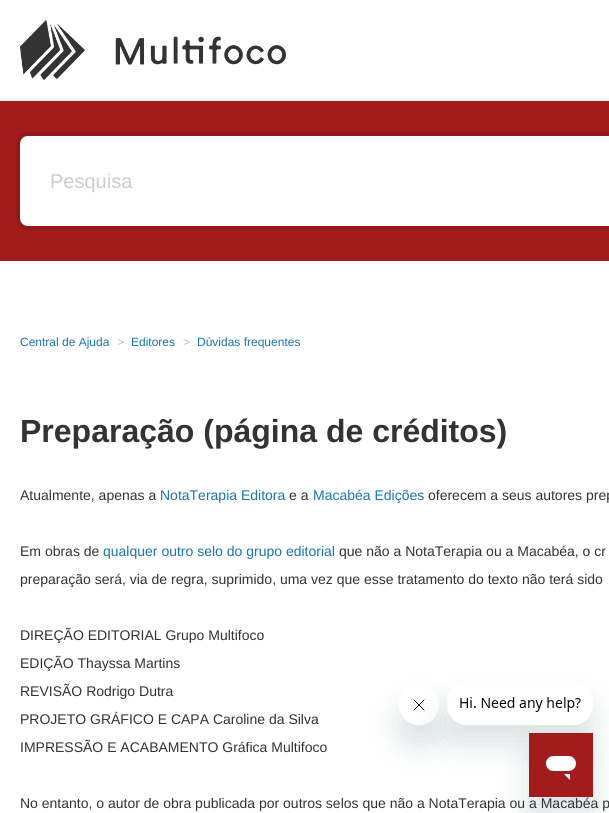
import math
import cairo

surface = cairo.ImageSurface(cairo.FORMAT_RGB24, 609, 813)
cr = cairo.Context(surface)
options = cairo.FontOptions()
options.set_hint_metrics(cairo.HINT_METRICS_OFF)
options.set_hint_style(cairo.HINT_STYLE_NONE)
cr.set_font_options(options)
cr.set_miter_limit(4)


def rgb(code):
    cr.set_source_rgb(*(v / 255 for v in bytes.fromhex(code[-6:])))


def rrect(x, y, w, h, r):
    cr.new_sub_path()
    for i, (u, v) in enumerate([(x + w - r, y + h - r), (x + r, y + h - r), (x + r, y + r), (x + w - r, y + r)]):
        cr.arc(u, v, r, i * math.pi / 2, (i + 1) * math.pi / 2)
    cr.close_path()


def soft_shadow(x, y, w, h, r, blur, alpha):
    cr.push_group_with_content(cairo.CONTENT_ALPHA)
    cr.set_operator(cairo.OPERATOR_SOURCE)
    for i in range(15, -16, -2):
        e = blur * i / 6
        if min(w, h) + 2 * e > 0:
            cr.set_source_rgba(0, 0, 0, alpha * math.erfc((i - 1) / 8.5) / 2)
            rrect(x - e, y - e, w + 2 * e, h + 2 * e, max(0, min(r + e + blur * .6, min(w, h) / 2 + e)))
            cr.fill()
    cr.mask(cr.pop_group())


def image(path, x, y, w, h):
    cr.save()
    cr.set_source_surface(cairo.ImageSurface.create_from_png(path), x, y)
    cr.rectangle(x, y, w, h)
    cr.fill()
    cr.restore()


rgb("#ffffff")
cr.paint()
rgb("#eeeeee")
cr.rectangle(0, 100, 609, 1)
cr.fill()
image("img/1.png", 20, 20, 266, 60)
rgb("#a21c1d")
cr.rectangle(0, 101, 609, 160)
cr.fill()
rrect(18, 134, 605, 94, 10)
rgb("#92191a")
cr.set_line_width(4)
cr.stroke()
rgb("#ffffff")
cr.new_path()
cr.move_to(28, 136)
cr.line_to(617, 136)
cr.line_to(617, 226)
cr.line_to(28, 226)
cr.curve_to(23.5, 226, 20, 222.5, 20, 218)
cr.line_to(20, 144)
cr.curve_to(20, 139.5, 23.5, 136, 28, 136)
cr.close_path()
cr.fill()
cr.save()
cr.set_fill_rule(cairo.FILL_RULE_EVEN_ODD)
cr.new_path()
cr.move_to(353, 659)
cr.line_to(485, 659)
cr.line_to(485, 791)
cr.line_to(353, 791)
cr.close_path()
cr.move_to(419, 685)
cr.curve_to(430, 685, 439, 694, 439, 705)
cr.curve_to(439, 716, 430, 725, 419, 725)
cr.curve_to(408, 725, 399, 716, 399, 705)
cr.curve_to(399, 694, 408, 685, 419, 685)
cr.close_path()
cr.clip()
rgb("#17494d")
soft_shadow(399, 705, 40, 40, 20, 15, 0.15)
cr.restore()
image("img/3.png", 413, 699, 12, 12)
cr.save()
cr.set_fill_rule(cairo.FILL_RULE_EVEN_ODD)
cr.new_path()
cr.move_to(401, 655)
cr.line_to(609, 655)
cr.line_to(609, 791)
cr.line_to(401, 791)
cr.close_path()
cr.move_to(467, 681)
cr.line_to(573, 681)
cr.curve_to(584, 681, 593, 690, 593, 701)
cr.line_to(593, 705)
cr.curve_to(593, 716, 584, 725, 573, 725)
cr.line_to(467, 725)
cr.curve_to(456, 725, 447, 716, 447, 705)
cr.line_to(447, 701)
cr.curve_to(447, 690, 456, 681, 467, 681)
cr.close_path()
cr.clip()
rgb("#17494d")
soft_shadow(447, 701, 146, 44, 20, 15, 0.15)
cr.restore()
image("img/2.png", 448, 697, 133, 28)
rgb("#17494d")
soft_shadow(529, 753, 64, 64, 0, 15, 0.15)
image("img/4.png", 529, 733, 64, 64)
cr.select_font_face("Liberation Sans")
cr.set_font_size(20)
rgb("#cccccc")
cr.move_to(50, 188)
cr.show_text("Pesquisa")
cr.set_font_size(12)
rgb("#1a74b0")
cr.move_to(20, 346)
cr.show_text("Central de Ajuda")
rgb("#bebebe")
cr.move_to(117, 346)
cr.show_text(">")
rgb("#1a74b0")
cr.move_to(131, 346)
cr.show_text("Editores")
rgb("#bebebe")
cr.move_to(183, 346)
cr.show_text(">")
rgb("#1a74b0")
cr.move_to(197, 346)
cr.show_text("Dúvidas frequentes")
cr.select_font_face("Liberation Sans", cairo.FONT_SLANT_NORMAL, cairo.FONT_WEIGHT_BOLD)
cr.set_font_size(32)
rgb("#333333")
cr.move_to(20, 442)
cr.show_text("Preparação (página de créditos)")
cr.select_font_face("Liberation Sans")
cr.set_font_size(14)
cr.move_to(20, 500)
cr.show_text("Atualmente, apenas a")
rgb("#1a74b0")
cr.move_to(160, 500)
cr.show_text("NotaTerapia Editora")
rgb("#333333")
cr.move_to(289, 500)
cr.show_text("e a")
rgb("#1a74b0")
cr.move_to(313, 500)
cr.show_text("Macabéa Edições")
rgb("#333333")
cr.move_to(428, 500)
cr.show_text("oferecem a seus autores prep")
cr.move_to(20, 556)
cr.show_text("Em obras de")
rgb("#1a74b0")
cr.move_to(103, 556)
cr.show_text("qualquer outro selo do grupo editorial")
rgb("#333333")
for x, y, s in [
    (339, 556, "que não a NotaTerapia ou a Macabéa, o cr"),
    (20, 584, "preparação será, via de regra, suprimido, uma vez que esse tratamento do texto não terá sido"),
    (20, 640, "DIREÇÃO EDITORIAL Grupo Multifoco"),
    (20, 668, "EDIÇÃO Thayssa Martins"),
    (20, 696, "REVISÃO Rodrigo Dutra"),
    (20, 724, "PROJETO GRÁFICO E CAPA Caroline da Silva"),
    (20, 752, "IMPRESSÃO E ACABAMENTO Gráfica Multifoco"),
    (20, 808, "No entanto, o autor de obra publicada por outros selos que não a NotaTerapia ou a Macabéa p"),
]:
    cr.move_to(x, y)
    cr.show_text(s)
surface.write_to_png("page.png")
